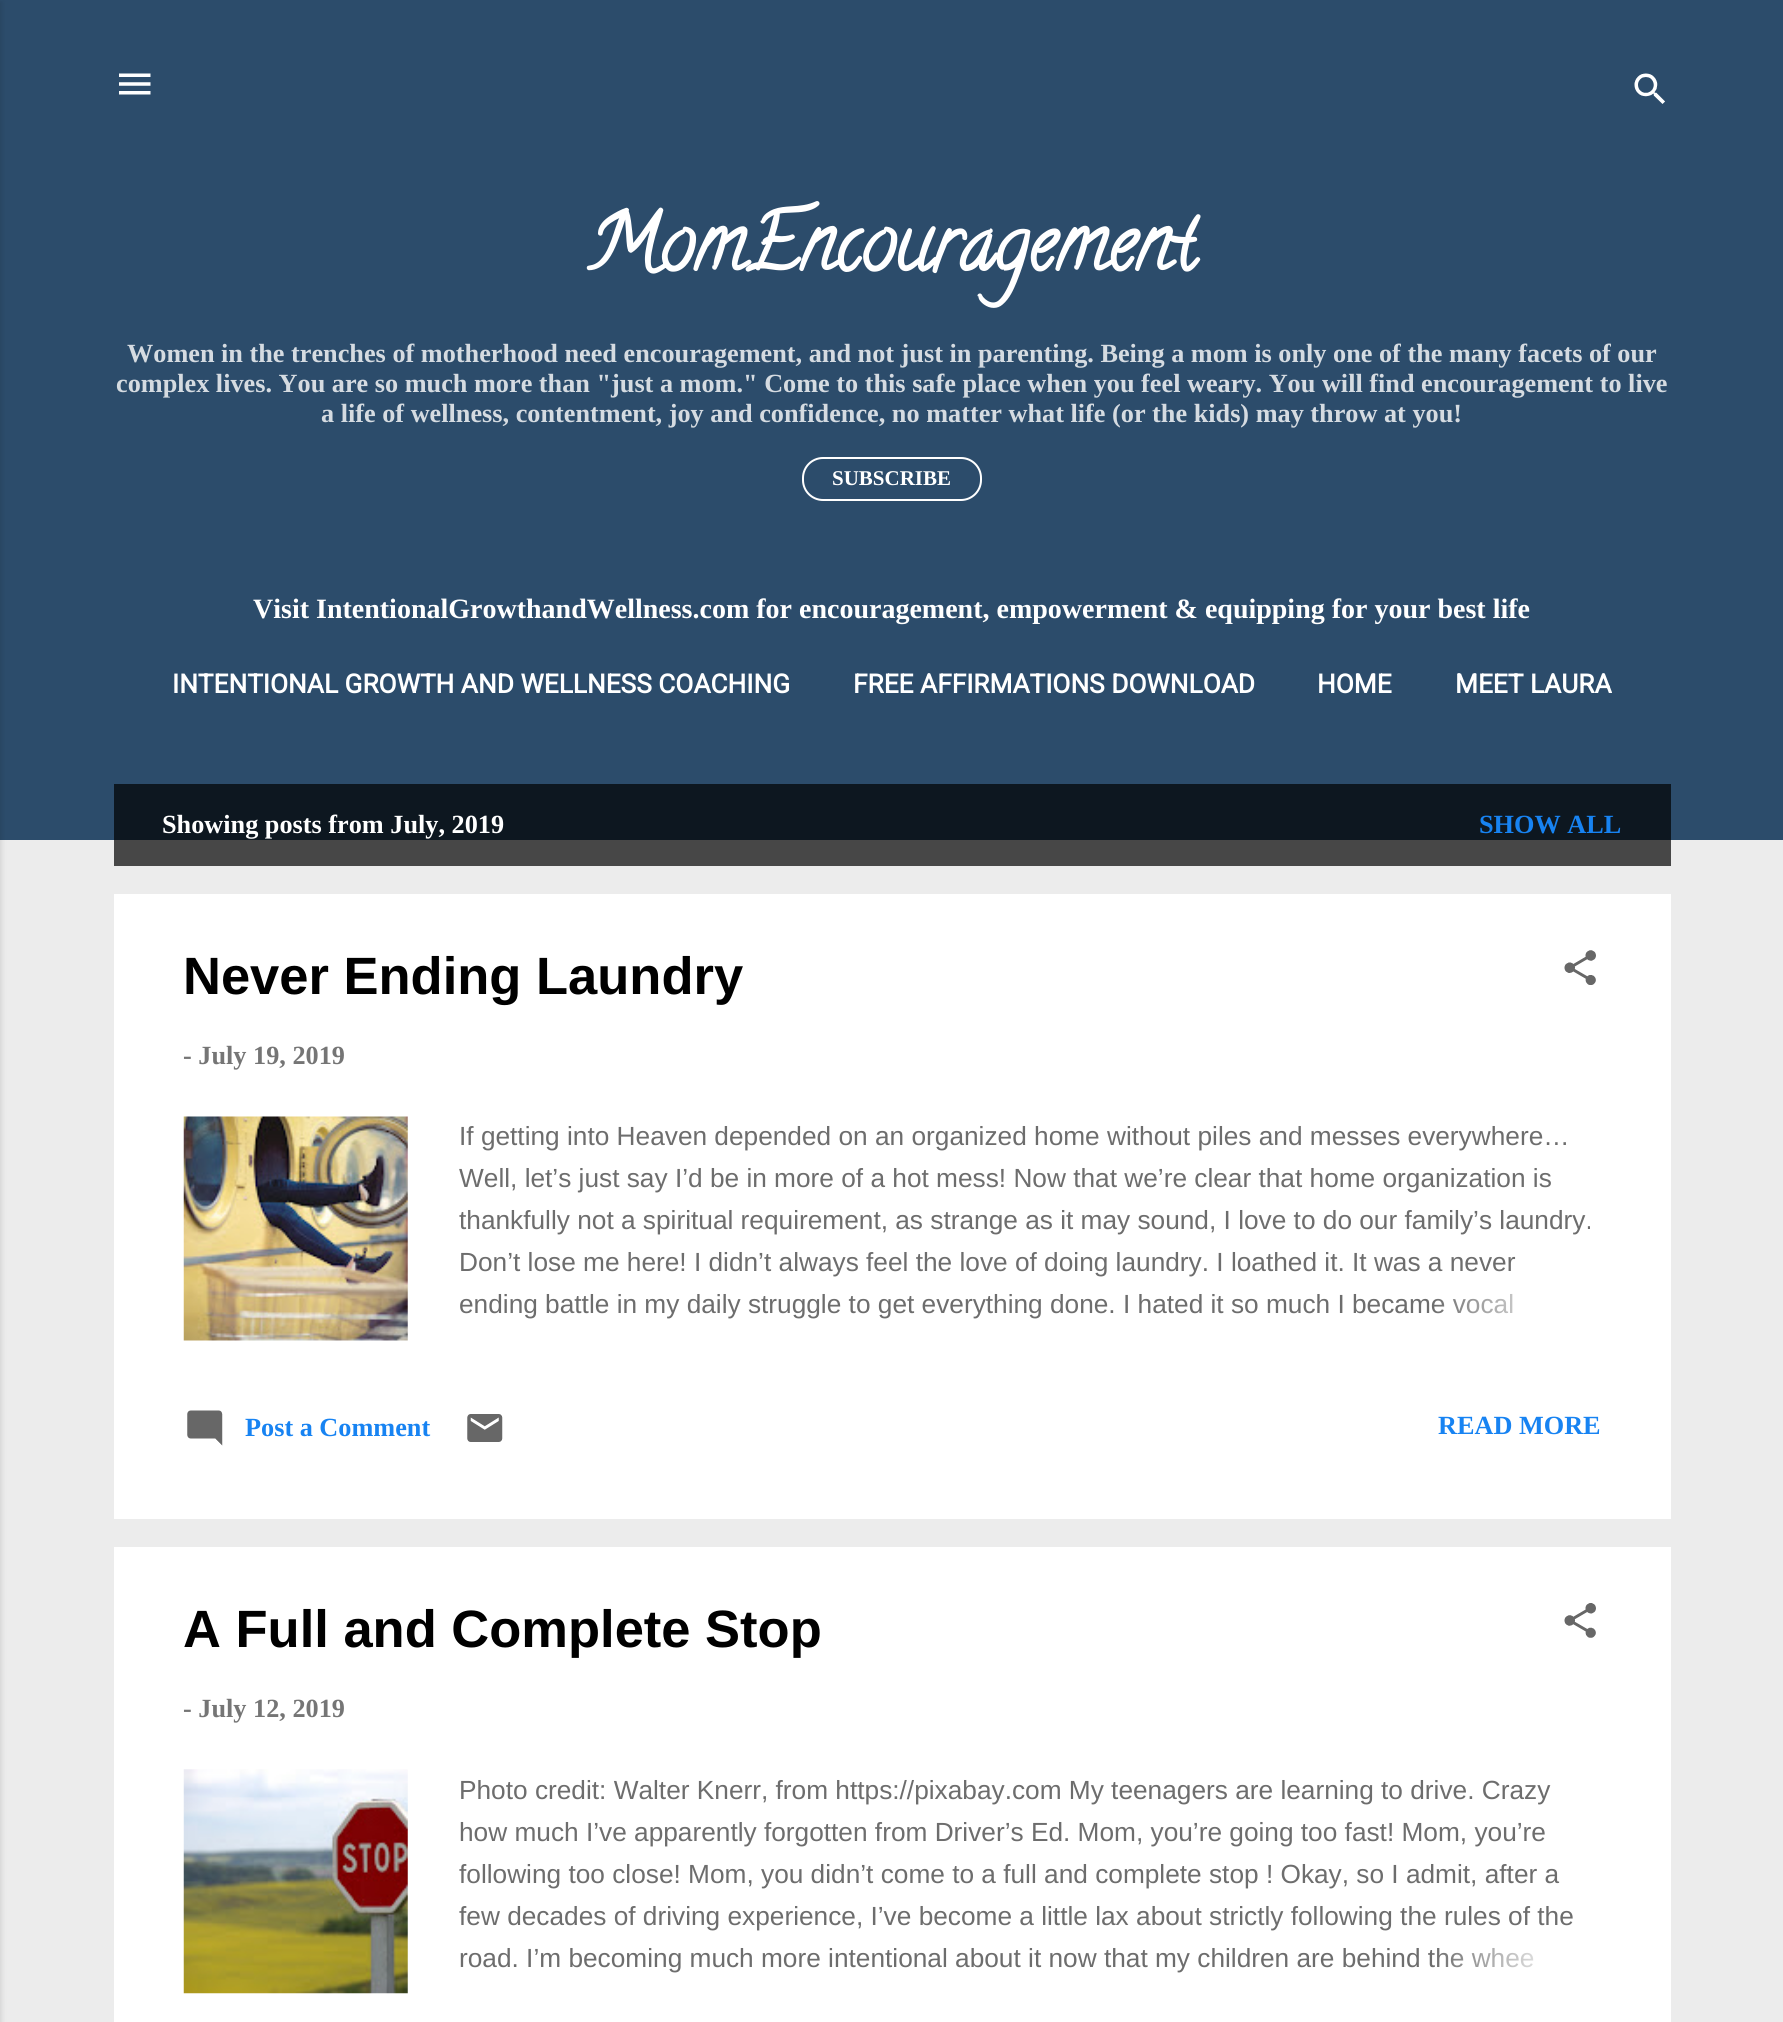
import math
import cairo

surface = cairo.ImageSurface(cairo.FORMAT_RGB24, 1783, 2022)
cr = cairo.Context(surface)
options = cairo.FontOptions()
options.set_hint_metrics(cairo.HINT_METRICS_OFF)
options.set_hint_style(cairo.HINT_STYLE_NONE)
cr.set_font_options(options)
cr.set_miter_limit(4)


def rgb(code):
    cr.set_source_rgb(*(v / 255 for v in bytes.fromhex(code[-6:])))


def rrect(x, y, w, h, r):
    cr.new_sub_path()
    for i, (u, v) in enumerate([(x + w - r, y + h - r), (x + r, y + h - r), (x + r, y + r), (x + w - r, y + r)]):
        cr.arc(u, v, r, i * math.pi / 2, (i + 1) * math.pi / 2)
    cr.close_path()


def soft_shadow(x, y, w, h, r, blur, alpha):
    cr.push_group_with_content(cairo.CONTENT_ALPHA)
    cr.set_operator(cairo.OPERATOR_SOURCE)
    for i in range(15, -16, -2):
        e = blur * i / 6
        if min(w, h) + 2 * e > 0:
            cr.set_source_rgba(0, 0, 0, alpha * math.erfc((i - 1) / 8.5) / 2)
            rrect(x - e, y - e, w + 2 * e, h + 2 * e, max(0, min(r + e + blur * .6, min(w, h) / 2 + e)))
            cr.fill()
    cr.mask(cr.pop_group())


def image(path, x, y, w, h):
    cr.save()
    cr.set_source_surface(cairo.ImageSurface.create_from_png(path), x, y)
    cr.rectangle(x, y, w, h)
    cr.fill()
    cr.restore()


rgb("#ececec")
cr.paint()
rgb("#474747")
cr.rectangle(114, 840, 1557, 26)
cr.fill()
rgb("#2c4c6b")
cr.rectangle(0, 0, 1783, 840)
cr.fill()
rgb("#000000")
soft_shadow(-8, 2, 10, 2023, 0, 2.5, 0.1)
rgb("#0d1720")
cr.rectangle(114, 784, 1557, 56)
cr.fill()
image("img/1.png", 119, 73, 32, 22)
image("img/2.png", 1634, 73, 31, 31)
rrect(803, 458, 178, 42, 20)
rgb("#ffffff")
cr.stroke()
cr.rectangle(114, 894, 1557, 625)
cr.fill()
image("img/3.png", 1564, 950, 32, 35)
image("img/4.png", 183, 1116, 225, 225)
image("img/5.png", 187, 1410, 36, 36)
image("img/6.png", 467, 1414, 36, 28)
cr.rectangle(114, 1547, 1557, 475)
cr.fill()
image("img/7.png", 1564, 1603, 32, 35)
image("img/8.png", 183, 1769, 225, 225)
cr.select_font_face("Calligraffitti", cairo.FONT_SLANT_NORMAL, cairo.FONT_WEIGHT_BOLD)
cr.set_font_size(78.75)
cr.move_to(586, 268)
cr.show_text("MomEncouragement")
cr.select_font_face("Liberation Serif", cairo.FONT_SLANT_NORMAL, cairo.FONT_WEIGHT_BOLD)
cr.set_font_size(26.25)
rgb("#d5dbe1")
for x, y, s in [
    (127, 362, "Women in the trenches of motherhood need encouragement, and not just in parenting. Being a mom is only one of the many facets of our"),
    (116, 392, "complex lives. You are so much more than \"just a mom.\" Come to this safe place when you feel weary. You will find encouragement to live"),
    (321, 422, "a life of wellness, contentment, joy and confidence, no matter what life (or the kids) may throw at you!"),
]:
    cr.move_to(x, y)
    cr.show_text(s)
cr.set_font_size(21)
rgb("#ffffff")
cr.move_to(832, 485)
cr.show_text("SUBSCRIBE")
cr.set_font_size(28)
cr.move_to(253, 618)
cr.show_text("Visit IntentionalGrowthandWellness.com for encouragement, empowerment & equipping for your best life")
cr.select_font_face("Roboto", cairo.FONT_SLANT_NORMAL, cairo.FONT_WEIGHT_BOLD)
cr.set_font_size(26.25)
for x, y, s in [
    (172, 693, "INTENTIONAL GROWTH AND WELLNESS COACHING"),
    (853, 693, "FREE AFFIRMATIONS DOWNLOAD"),
    (1317, 693, "HOME"),
    (1455, 693, "MEET LAURA"),
]:
    cr.move_to(x, y)
    cr.show_text(s)
cr.select_font_face("Liberation Serif", cairo.FONT_SLANT_NORMAL, cairo.FONT_WEIGHT_BOLD)
cr.move_to(162, 833)
cr.show_text("Showing posts from July, 2019")
rgb("#1783f2")
cr.move_to(1479, 833)
cr.show_text("SHOW ALL")
cr.select_font_face("Liberation Sans", cairo.FONT_SLANT_NORMAL, cairo.FONT_WEIGHT_BOLD)
cr.set_font_size(52.5)
rgb("#000000")
cr.move_to(183, 994)
cr.show_text("Never Ending Laundry")
cr.select_font_face("Liberation Serif", cairo.FONT_SLANT_NORMAL, cairo.FONT_WEIGHT_BOLD)
cr.set_font_size(26.25)
rgb("#757575")
cr.move_to(183, 1064)
cr.show_text("- July 19, 2019")
cr.select_font_face("Liberation Sans")
rgb("#6d6d6d")
for x, y, s in [
    (459, 1145, "If getting into Heaven depended on an organized home without piles and messes everywhere…"),
    (459, 1187, "Well, let’s just say I’d be in more of a hot mess! Now that we’re clear that home organization is"),
    (459, 1229, "thankfully not a spiritual requirement, as strange as it may sound, I love to do our family’s laundry."),
    (459, 1271, "Don’t lose me here! I didn’t always feel the love of doing laundry. I loathed it. It was a never"),
    (459, 1313, "ending battle in my daily struggle to get everything done. I hated it so much I became vocal"),
]:
    cr.move_to(x, y)
    cr.show_text(s)
gradient = cairo.LinearGradient(1601, 1306, 1433, 1306)
gradient.add_color_stop_rgba(0, 1, 1, 1, 1)
gradient.add_color_stop_rgba(0.2, 1, 1, 1, 1)
gradient.add_color_stop_rgba(1, 1, 1, 1, 0)
cr.set_source(gradient)
cr.rectangle(1436, 1294, 77, 20)
cr.fill()
cr.select_font_face("Liberation Serif", cairo.FONT_SLANT_NORMAL, cairo.FONT_WEIGHT_BOLD)
rgb("#1783f2")
cr.move_to(245, 1436)
cr.show_text("Post a Comment")
cr.move_to(1438, 1434)
cr.show_text("READ MORE")
cr.select_font_face("Liberation Sans", cairo.FONT_SLANT_NORMAL, cairo.FONT_WEIGHT_BOLD)
cr.set_font_size(52.5)
rgb("#000000")
cr.move_to(183, 1647)
cr.show_text("A Full and Complete Stop")
cr.select_font_face("Liberation Serif", cairo.FONT_SLANT_NORMAL, cairo.FONT_WEIGHT_BOLD)
cr.set_font_size(26.25)
rgb("#757575")
cr.move_to(183, 1717)
cr.show_text("- July 12, 2019")
cr.select_font_face("Liberation Sans")
rgb("#6d6d6d")
for x, y, s in [
    (459, 1799, "Photo credit: Walter Knerr, from https://pixabay.com My teenagers are learning to drive. Crazy"),
    (459, 1841, "how much I’ve apparently forgotten from Driver’s Ed. Mom, you’re going too fast! Mom, you’re"),
    (459, 1883, "following too close! Mom, you didn’t come to a full and complete stop ! Okay, so I admit, after a"),
    (459, 1925, "few decades of driving experience, I’ve become a little lax about strictly following the rules of the"),
    (459, 1967, "road. I’m becoming much more intentional about it now that my children are behind the whee"),
]:
    cr.move_to(x, y)
    cr.show_text(s)
gradient = cairo.LinearGradient(1601, 1958, 1433, 1958)
gradient.add_color_stop_rgba(0, 1, 1, 1, 1)
gradient.add_color_stop_rgba(0.2, 1, 1, 1, 1)
gradient.add_color_stop_rgba(1, 1, 1, 1, 0)
cr.set_source(gradient)
cr.rectangle(1437, 1948, 97, 20)
cr.fill()
surface.write_to_png("page.png")
